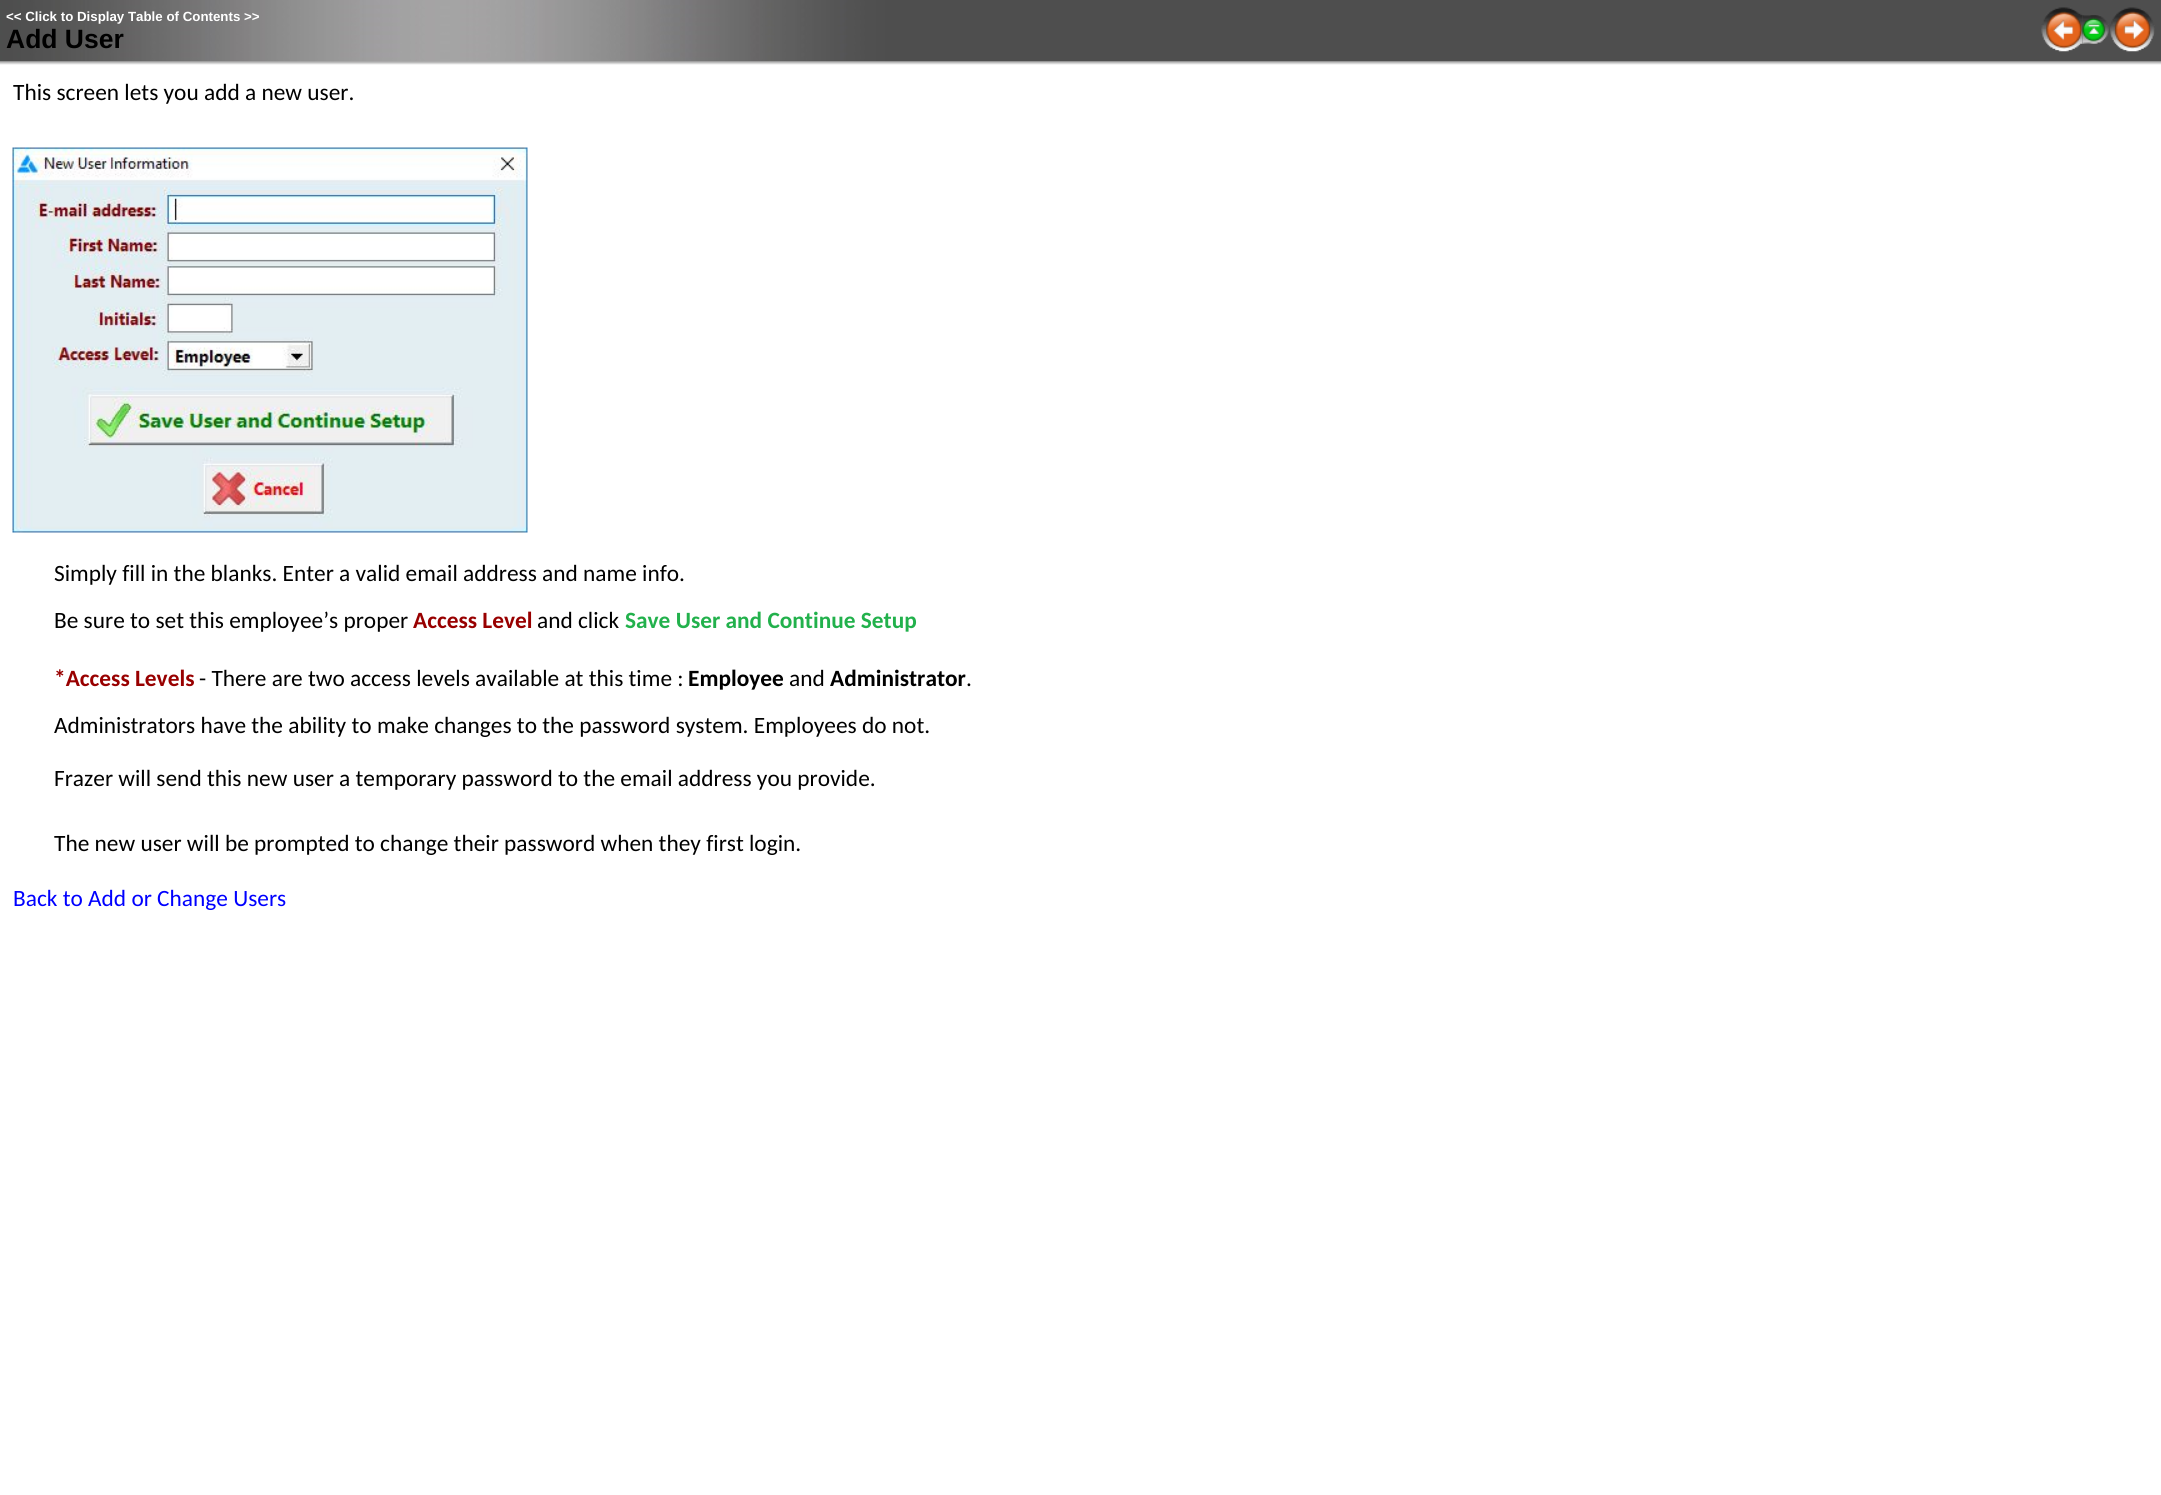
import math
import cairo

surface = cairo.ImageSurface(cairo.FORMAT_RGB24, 2161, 1495)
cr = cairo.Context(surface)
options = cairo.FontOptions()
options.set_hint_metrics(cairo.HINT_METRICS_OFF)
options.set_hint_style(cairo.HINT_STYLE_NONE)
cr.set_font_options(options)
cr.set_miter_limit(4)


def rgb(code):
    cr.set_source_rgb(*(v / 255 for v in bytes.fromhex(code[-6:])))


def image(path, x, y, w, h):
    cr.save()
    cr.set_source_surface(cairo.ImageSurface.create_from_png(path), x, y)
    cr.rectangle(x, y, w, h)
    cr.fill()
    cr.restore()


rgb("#ffffff")
cr.paint()
image("img/1.png", 0, 0, 2161, 62)
image("img/2.png", 2041, 7, 42, 45)
image("img/3.png", 2082, 15, 27, 29)
image("img/4.png", 2110, 7, 45, 45)
image("img/5.png", 0, 61, 2161, 4)
image("img/6.png", 12, 147, 516, 386)
cr.select_font_face("Liberation Sans", cairo.FONT_SLANT_NORMAL, cairo.FONT_WEIGHT_BOLD)
cr.set_font_size(13.3)
rgb("#ffffff")
cr.move_to(6, 21)
cr.show_text("<< Click to Display Table of Contents >>")
cr.set_font_size(26.5)
rgb("#000000")
cr.move_to(6, 48)
cr.show_text("Add User")
cr.select_font_face("Carlito")
cr.set_font_size(23.35)
for x, y, s in [
    (13, 100, "This screen lets you add a new user."),
    (54, 581, "Simply fill in the blanks. Enter a valid email address and name info."),
    (54, 628, "Be sure to set this employee’s proper"),
]:
    cr.move_to(x, y)
    cr.show_text(s)
cr.select_font_face("Carlito", cairo.FONT_SLANT_NORMAL, cairo.FONT_WEIGHT_BOLD)
rgb("#980000")
cr.move_to(413, 628)
cr.show_text("Access Level")
cr.select_font_face("Carlito")
rgb("#000000")
cr.move_to(537, 628)
cr.show_text("and click")
cr.select_font_face("Carlito", cairo.FONT_SLANT_NORMAL, cairo.FONT_WEIGHT_BOLD)
rgb("#22b14c")
cr.move_to(625, 628)
cr.show_text("Save User and Continue Setup")
rgb("#980000")
cr.move_to(54, 686)
cr.show_text("*Access Levels")
cr.select_font_face("Carlito")
rgb("#000000")
cr.move_to(199, 686)
cr.show_text("- There are two access levels available at this time :")
cr.select_font_face("Carlito", cairo.FONT_SLANT_NORMAL, cairo.FONT_WEIGHT_BOLD)
cr.move_to(688, 686)
cr.show_text("Employee")
cr.select_font_face("Carlito")
cr.move_to(789, 686)
cr.show_text("and")
cr.select_font_face("Carlito", cairo.FONT_SLANT_NORMAL, cairo.FONT_WEIGHT_BOLD)
cr.move_to(830, 686)
cr.show_text("Administrator")
cr.select_font_face("Carlito")
for x, y, s in [
    (966, 686, "."),
    (54, 733, "Administrators have the ability to make changes to the password system. Employees do not."),
    (54, 786, "Frazer will send this new user a temporary password to the email address you provide."),
    (54, 851, "The new user will be prompted to change their password when they first login."),
]:
    cr.move_to(x, y)
    cr.show_text(s)
rgb("#0000ff")
cr.move_to(13, 906)
cr.show_text("Back to Add or Change Users")
surface.write_to_png("page.png")
